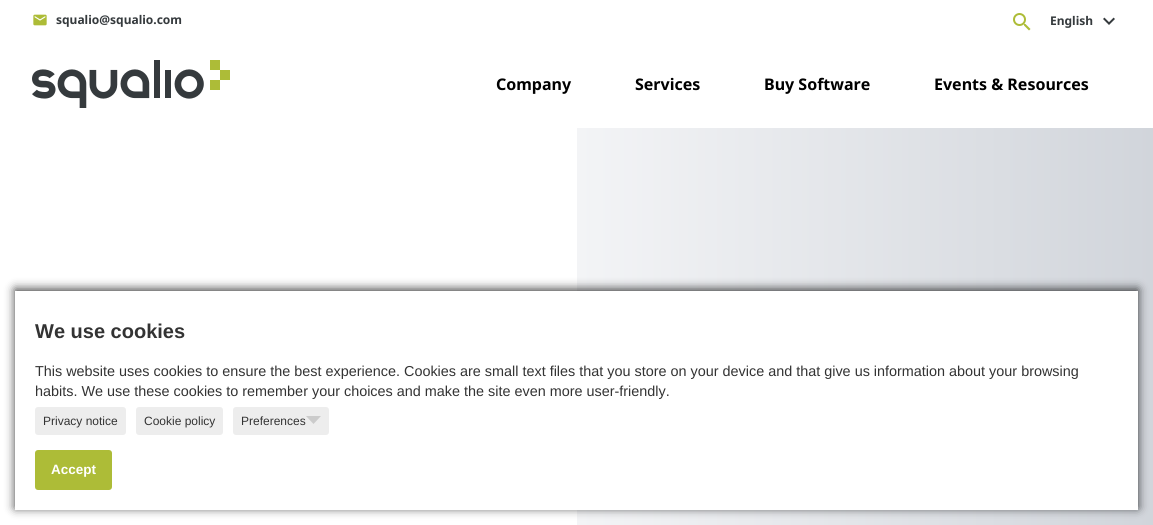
import math
import cairo

surface = cairo.ImageSurface(cairo.FORMAT_RGB24, 1153, 525)
cr = cairo.Context(surface)
options = cairo.FontOptions()
options.set_hint_metrics(cairo.HINT_METRICS_OFF)
options.set_hint_style(cairo.HINT_STYLE_NONE)
cr.set_font_options(options)
cr.set_miter_limit(4)


def rgb(code):
    cr.set_source_rgb(*(v / 255 for v in bytes.fromhex(code[-6:])))


def rrect(x, y, w, h, r):
    cr.new_sub_path()
    for i, (u, v) in enumerate([(x + w - r, y + h - r), (x + r, y + h - r), (x + r, y + r), (x + w - r, y + r)]):
        cr.arc(u, v, r, i * math.pi / 2, (i + 1) * math.pi / 2)
    cr.close_path()


def soft_shadow(x, y, w, h, r, blur, alpha):
    cr.push_group_with_content(cairo.CONTENT_ALPHA)
    cr.set_operator(cairo.OPERATOR_SOURCE)
    for i in range(15, -16, -2):
        e = blur * i / 6
        if min(w, h) + 2 * e > 0:
            cr.set_source_rgba(0, 0, 0, alpha * math.erfc((i - 1) / 8.5) / 2)
            rrect(x - e, y - e, w + 2 * e, h + 2 * e, max(0, min(r + e + blur * .6, min(w, h) / 2 + e)))
            cr.fill()
    cr.mask(cr.pop_group())


def image(path, x, y, w, h):
    cr.save()
    cr.set_source_surface(cairo.ImageSurface.create_from_png(path), x, y)
    cr.rectangle(x, y, w, h)
    cr.fill()
    cr.restore()


rgb("#ffffff")
cr.paint()
image("img/1.png", 33, 14, 14, 12)
image("img/2.png", 1013, 13, 18, 18)
image("img/3.png", 1103, 17, 12, 8)
image("img/4.png", 32, 60, 198, 48)
gradient = cairo.LinearGradient(577, 508, 1153, 508)
gradient.add_color_stop_rgba(0, 0.953, 0.957, 0.965, 1)
gradient.add_color_stop_rgba(1, 0.82, 0.835, 0.859, 1)
cr.set_source(gradient)
cr.rectangle(577, 128, 576, 397)
cr.fill()
rgb("#000000")
soft_shadow(15, 289, 1123, 219, 0, 5, 0.75)
rgb("#ffffff")
cr.rectangle(15, 291, 1123, 219)
cr.fill()
rgb("#ededed")
rrect(35, 407, 91, 28, 3)
cr.fill()
rrect(136, 407, 87, 28, 3)
cr.fill()
rrect(233, 407, 96, 28, 3)
cr.fill()
rgb("#cbcbcb")
cr.new_path()
cr.move_to(313.5, 424)
cr.line_to(306, 416)
cr.line_to(321, 416)
cr.close_path()
cr.fill()
rgb("#adbc37")
rrect(35, 450, 77, 40, 3)
cr.fill()
cr.select_font_face("Noto Sans", cairo.FONT_SLANT_NORMAL, cairo.FONT_WEIGHT_BOLD)
cr.set_font_size(12)
rgb("#353a3d")
cr.move_to(56, 24)
cr.show_text("squalio@squalio.com")
cr.move_to(1050, 25)
cr.show_text("English")
cr.set_font_size(16)
rgb("#000000")
for x, y, s in [
    (496, 90, "Company"),
    (635, 90, "Services"),
    (764, 90, "Buy Software"),
    (934, 90, "Events & Resources"),
]:
    cr.move_to(x, y)
    cr.show_text(s)
cr.select_font_face("Liberation Sans", cairo.FONT_SLANT_NORMAL, cairo.FONT_WEIGHT_BOLD)
cr.set_font_size(20)
rgb("#333333")
cr.move_to(35, 338)
cr.show_text("We use cookies")
cr.select_font_face("Liberation Sans")
cr.set_font_size(14.4)
cr.move_to(35, 376)
cr.show_text("This website uses cookies to ensure the best experience. Cookies are small text files that you store on your device and that give us information about your browsing")
cr.move_to(35, 396)
cr.show_text("habits. We use these cookies to remember your choices and make the site even more user-friendly.")
cr.set_font_size(12)
for x, y, s in [
    (43, 425, "Privacy notice"),
    (144, 425, "Cookie policy"),
    (241, 425, "Preferences"),
]:
    cr.move_to(x, y)
    cr.show_text(s)
cr.select_font_face("Liberation Sans", cairo.FONT_SLANT_NORMAL, cairo.FONT_WEIGHT_BOLD)
cr.set_font_size(13.5)
rgb("#ffffff")
cr.move_to(51, 474)
cr.show_text("Accept")
surface.write_to_png("page.png")
